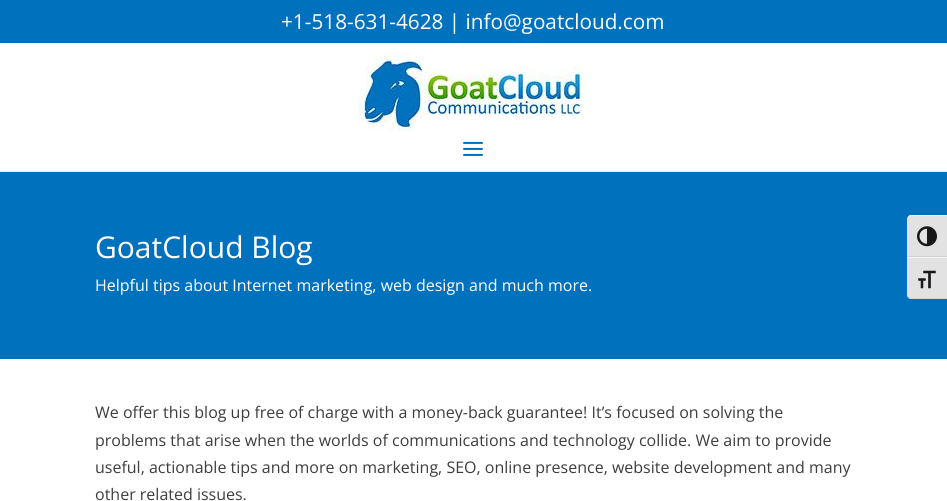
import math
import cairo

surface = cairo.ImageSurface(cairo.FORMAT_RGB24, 947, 501)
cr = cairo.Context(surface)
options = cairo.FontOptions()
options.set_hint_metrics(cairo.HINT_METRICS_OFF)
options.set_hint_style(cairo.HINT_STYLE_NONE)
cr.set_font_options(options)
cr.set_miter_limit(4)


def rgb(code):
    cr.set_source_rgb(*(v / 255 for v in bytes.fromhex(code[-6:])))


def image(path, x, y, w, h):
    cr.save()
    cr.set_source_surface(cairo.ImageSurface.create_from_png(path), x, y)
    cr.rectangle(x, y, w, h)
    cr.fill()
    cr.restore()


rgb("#ffffff")
cr.paint()
rgb("#0071bd")
cr.rectangle(0, 0, 947, 43)
cr.fill()
rgb("#ededed")
cr.rectangle(0, 171, 947, 1)
cr.fill()
image("img/1.png", 358, 51, 232, 80)
image("img/2.png", 463, 141, 20, 15)
rgb("#0071bd")
cr.rectangle(0, 172, 947, 187)
cr.fill()
rgb("#e2e2e2")
cr.new_path()
cr.move_to(911, 215)
cr.line_to(947, 215)
cr.line_to(947, 257)
cr.line_to(907, 257)
cr.line_to(907, 219)
cr.curve_to(907, 217, 909, 215, 911, 215)
cr.close_path()
cr.fill()
rgb("#f5f5f5")
cr.new_path()
cr.move_to(911, 216)
cr.line_to(947, 216)
cr.line_to(947, 215)
cr.line_to(911, 215)
cr.curve_to(909, 215, 907, 217, 907, 219)
cr.curve_to(907, 217, 909, 216, 911, 216)
cr.close_path()
cr.fill()
rgb("#d2d2d2")
cr.rectangle(907, 256, 40, 1)
cr.fill()
image("img/3.png", 917, 226, 20, 21)
rgb("#e2e2e2")
cr.new_path()
cr.move_to(907, 257)
cr.line_to(947, 257)
cr.line_to(947, 299)
cr.line_to(911, 299)
cr.curve_to(909, 299, 907, 297, 907, 295)
cr.close_path()
cr.fill()
rgb("#f5f5f5")
cr.rectangle(907, 257, 40, 1)
cr.fill()
rgb("#d2d2d2")
cr.new_path()
cr.move_to(947, 299)
cr.line_to(947, 298)
cr.line_to(911, 298)
cr.curve_to(909, 298, 907, 297, 907, 295)
cr.curve_to(907, 297, 909, 299, 911, 299)
cr.close_path()
cr.fill()
image("img/4.png", 918, 270, 18, 19)
cr.select_font_face("Open Sans")
cr.set_font_size(20.75)
rgb("#ffffff")
cr.move_to(281, 29)
cr.show_text("+1-518-631-4628 | info@goatcloud.com")
cr.set_font_size(30)
cr.move_to(95, 258)
cr.show_text("GoatCloud Blog")
cr.set_font_size(16)
cr.move_to(95, 291)
cr.show_text("Helpful tips about Internet marketing, web design and much more.")
rgb("#3d3d3d")
for x, y, s in [
    (95, 418, "We offer this blog up free of charge with a money-back guarantee! It’s focused on solving the"),
    (95, 446, "problems that arise when the worlds of communications and technology collide. We aim to provide"),
    (95, 473, "useful, actionable tips and more on marketing, SEO, online presence, website development and many"),
    (95, 500, "other related issues."),
]:
    cr.move_to(x, y)
    cr.show_text(s)
surface.write_to_png("page.png")
